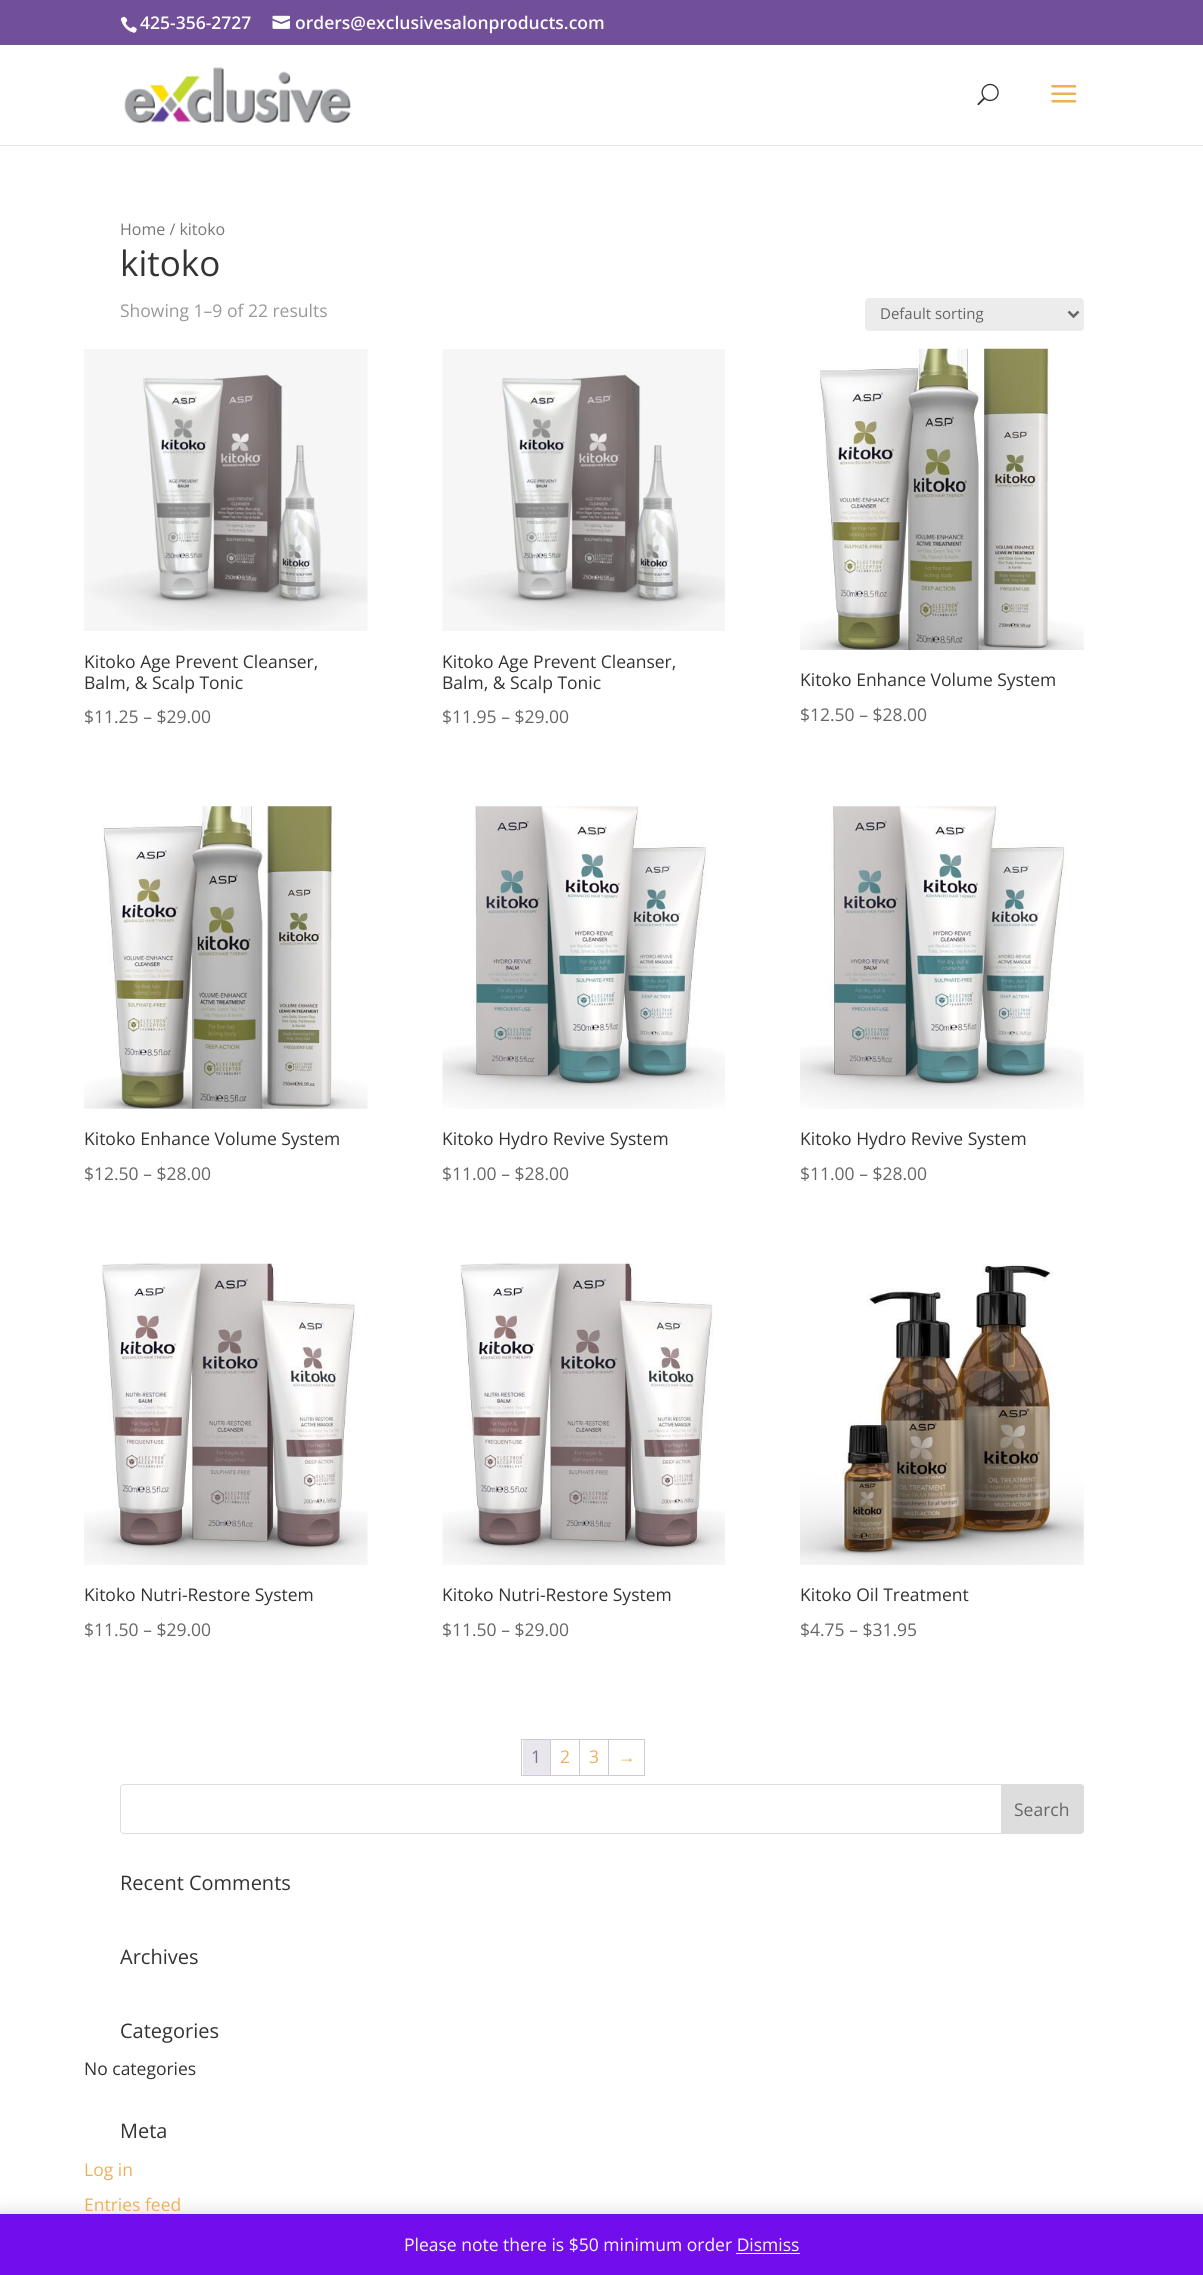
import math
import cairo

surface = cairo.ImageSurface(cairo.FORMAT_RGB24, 1203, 2275)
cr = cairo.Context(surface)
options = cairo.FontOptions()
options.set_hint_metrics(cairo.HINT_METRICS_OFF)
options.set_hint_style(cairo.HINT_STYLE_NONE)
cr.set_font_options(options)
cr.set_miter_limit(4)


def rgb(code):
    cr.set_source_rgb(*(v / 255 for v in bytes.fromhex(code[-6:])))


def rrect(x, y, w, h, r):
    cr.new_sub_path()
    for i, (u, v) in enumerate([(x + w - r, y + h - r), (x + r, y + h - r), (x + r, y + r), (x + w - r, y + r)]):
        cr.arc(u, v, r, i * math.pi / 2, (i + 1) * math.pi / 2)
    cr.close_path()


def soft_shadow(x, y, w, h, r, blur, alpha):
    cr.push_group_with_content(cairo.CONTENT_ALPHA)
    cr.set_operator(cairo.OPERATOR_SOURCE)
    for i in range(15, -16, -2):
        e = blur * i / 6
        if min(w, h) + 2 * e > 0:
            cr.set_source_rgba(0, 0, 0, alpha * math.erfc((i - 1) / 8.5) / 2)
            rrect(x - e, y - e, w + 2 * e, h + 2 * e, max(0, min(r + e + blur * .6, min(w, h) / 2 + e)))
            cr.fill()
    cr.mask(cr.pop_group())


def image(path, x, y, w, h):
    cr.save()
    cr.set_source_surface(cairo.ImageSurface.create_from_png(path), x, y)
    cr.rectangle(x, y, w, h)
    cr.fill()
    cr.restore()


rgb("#ffffff")
cr.paint()
rgb("#714f99")
cr.rectangle(0, 0, 1203, 45)
cr.fill()
image("img/1.png", 120, 16, 17, 17)
image("img/2.png", 272, 15, 18, 14)
rgb("#e6e6e6")
cr.new_path()
cr.move_to(0, 145)
cr.line_to(0, 146)
cr.line_to(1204, 146)
cr.line_to(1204, 46)
cr.line_to(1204, 145)
cr.close_path()
cr.fill()
image("img/3.png", 124, 67, 227, 56)
image("img/4.png", 977, 83, 22, 23)
image("img/5.png", 1051, 85, 26, 18)
rgb("#ececec")
rrect(865, 298, 219, 33, 4)
cr.fill()
cr.new_path()
cr.move_to(1068.5, 311.5)
cr.line_to(1073.5, 316.5)
cr.line_to(1078.5, 311.5)
rgb("#666666")
cr.set_line_width(2.5)
cr.stroke()
image("img/6.png", 84, 349, 284, 282)
image("img/7.png", 442, 349, 283, 282)
image("img/8.png", 800, 348, 284, 302)
image("img/9.png", 84, 806, 284, 303)
image("img/10.png", 442, 806, 283, 303)
image("img/11.png", 800, 806, 284, 303)
image("img/12.png", 84, 1263, 284, 302)
image("img/13.png", 442, 1263, 283, 302)
image("img/14.png", 800, 1264, 284, 301)
for x, y, w, h, color in [
    (521, 1739, 124, 1, "#cfc8d8"),
    (521, 1775, 124, 1, "#cfc8d8"),
    (521, 1739, 1, 37, "#cfc8d8"),
    (550, 1740, 1, 35, "#cfc8d8"),
    (523, 1740, 27, 35, "#e9e6ed"),
    (579, 1740, 1, 35, "#cfc8d8"),
    (608, 1740, 1, 35, "#cfc8d8"),
    (644, 1740, 1, 35, "#cfc8d8"),
]:
    rgb(color)
    cr.rectangle(x, y, w, h)
    cr.fill()
rrect(120.5, 1784.5, 963, 49, 3.5)
rgb("#dddddd")
cr.set_line_width(1)
cr.stroke()
cr.new_path()
cr.move_to(1001.5, 1784.5)
cr.line_to(1080, 1784.5)
cr.curve_to(1082, 1784.5, 1083.5, 1786, 1083.5, 1788)
cr.line_to(1083.5, 1830)
cr.curve_to(1083.5, 1832, 1082, 1833.5, 1080, 1833.5)
cr.line_to(1001.5, 1833.5)
cr.close_path()
cr.fill_preserve()
cr.stroke()
rgb("#000000")
soft_shadow(0, 2215, 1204, 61, 0, 9, 0.2)
rgb("#720eec")
cr.rectangle(0, 2214, 1203, 61)
cr.fill()
rgb("#fcfbfe")
cr.rectangle(736, 2253, 64, 1)
cr.fill()
cr.select_font_face("Open Sans SemiBold")
cr.set_font_size(17.5)
cr.move_to(140, 29)
cr.show_text("425-356-2727")
cr.move_to(295, 29)
cr.show_text("orders@exclusivesalonproducts.com")
cr.select_font_face("Open Sans")
cr.set_font_size(16)
rgb("#767676")
cr.move_to(120, 235)
cr.show_text("Home / kitoko")
cr.set_font_size(35)
rgb("#333333")
cr.move_to(120, 276)
cr.show_text("kitoko")
cr.set_font_size(17.5)
rgb("#999999")
cr.move_to(120, 317)
cr.show_text("Showing 1–9 of 22 results")
cr.set_font_size(15)
rgb("#666666")
cr.move_to(880, 319)
cr.show_text("Default sorting")
cr.set_font_size(17.5)
rgb("#333333")
cr.move_to(84, 668)
cr.show_text("Kitoko Age Prevent Cleanser,")
cr.move_to(84, 689)
cr.show_text("Balm, & Scalp Tonic")
rgb("#666666")
cr.move_to(84, 723)
cr.show_text("$11.25 – $29.00")
rgb("#333333")
cr.move_to(442, 668)
cr.show_text("Kitoko Age Prevent Cleanser,")
cr.move_to(442, 689)
cr.show_text("Balm, & Scalp Tonic")
rgb("#666666")
cr.move_to(442, 723)
cr.show_text("$11.95 – $29.00")
rgb("#333333")
cr.move_to(800, 686)
cr.show_text("Kitoko Enhance Volume System")
rgb("#666666")
cr.move_to(800, 721)
cr.show_text("$12.50 – $28.00")
rgb("#333333")
cr.move_to(84, 1145)
cr.show_text("Kitoko Enhance Volume System")
rgb("#666666")
cr.move_to(84, 1180)
cr.show_text("$12.50 – $28.00")
rgb("#333333")
cr.move_to(442, 1145)
cr.show_text("Kitoko Hydro Revive System")
rgb("#666666")
cr.move_to(442, 1180)
cr.show_text("$11.00 – $28.00")
rgb("#333333")
cr.move_to(800, 1145)
cr.show_text("Kitoko Hydro Revive System")
rgb("#666666")
cr.move_to(800, 1180)
cr.show_text("$11.00 – $28.00")
rgb("#333333")
cr.move_to(84, 1601)
cr.show_text("Kitoko Nutri-Restore System")
rgb("#666666")
cr.move_to(84, 1636)
cr.show_text("$11.50 – $29.00")
rgb("#333333")
cr.move_to(442, 1601)
cr.show_text("Kitoko Nutri-Restore System")
rgb("#666666")
cr.move_to(442, 1636)
cr.show_text("$11.50 – $29.00")
rgb("#333333")
cr.move_to(800, 1601)
cr.show_text("Kitoko Oil Treatment")
rgb("#666666")
cr.move_to(800, 1636)
cr.show_text("$4.75 – $31.95")
rgb("#816f98")
cr.move_to(531, 1763)
cr.show_text("1")
rgb("#edb059")
cr.move_to(560, 1763)
cr.show_text("2")
cr.move_to(589, 1763)
cr.show_text("3")
cr.select_font_face("Liberation Sans")
cr.move_to(618, 1763)
cr.show_text("→")
cr.select_font_face("Open Sans")
rgb("#666666")
cr.move_to(1014, 1816)
cr.show_text("Search")
cr.set_font_size(20)
rgb("#333333")
for x, y, s in [
    (120, 1890, "Recent Comments"),
    (120, 1964, "Archives"),
    (120, 2038, "Categories"),
]:
    cr.move_to(x, y)
    cr.show_text(s)
cr.set_font_size(17.5)
cr.move_to(84, 2075)
cr.show_text("No categories")
cr.set_font_size(20)
cr.move_to(120, 2138)
cr.show_text("Meta")
cr.set_font_size(17.5)
rgb("#edb059")
cr.move_to(84, 2176)
cr.show_text("Log in")
cr.move_to(84, 2211)
cr.show_text("Entries feed")
rgb("#fcfbfe")
cr.move_to(404, 2251)
cr.show_text("Please note there is $50 minimum order Dismiss")
surface.write_to_png("page.png")
